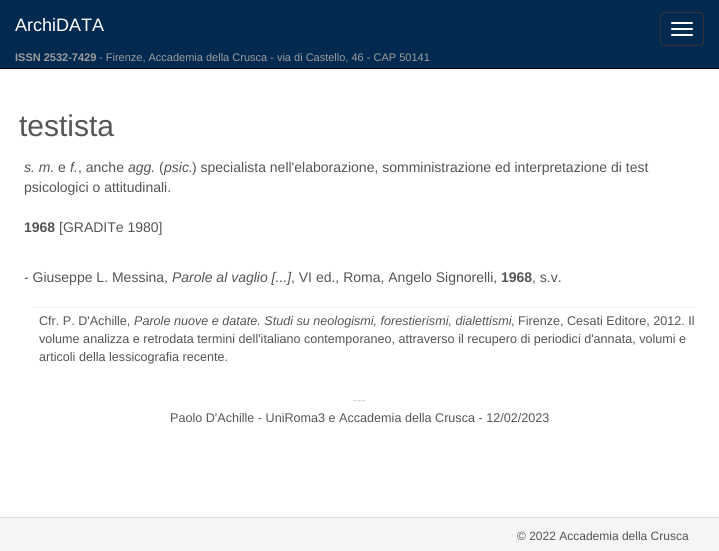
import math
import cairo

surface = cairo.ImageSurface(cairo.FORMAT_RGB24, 719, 551)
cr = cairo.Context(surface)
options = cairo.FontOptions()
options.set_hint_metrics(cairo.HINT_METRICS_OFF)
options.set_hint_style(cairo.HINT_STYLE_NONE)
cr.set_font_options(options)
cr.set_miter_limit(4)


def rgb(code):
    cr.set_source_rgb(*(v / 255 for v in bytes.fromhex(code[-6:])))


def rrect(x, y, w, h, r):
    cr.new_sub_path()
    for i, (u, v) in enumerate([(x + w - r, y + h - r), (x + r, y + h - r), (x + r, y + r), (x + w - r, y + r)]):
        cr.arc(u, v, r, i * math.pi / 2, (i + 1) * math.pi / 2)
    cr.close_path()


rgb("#ffffff")
cr.paint()
rgb("#022a50")
cr.rectangle(0, 0, 719, 68)
cr.fill()
rgb("#080808")
cr.rectangle(0, 68, 719, 1)
cr.fill()
rrect(660.5, 12.5, 43, 33, 3.5)
rgb("#333333")
cr.set_line_width(1)
cr.stroke()
rgb("#ffffff")
rrect(671, 22, 22, 2, 1)
cr.fill()
rrect(671, 28, 22, 2, 1)
cr.fill()
rrect(671, 34, 22, 2, 1)
cr.fill()
for x, y, w, h, color in [
    (34, 307, 661, 1, "#f0f0f0"),
    (0, 518, 719, 33, "#f5f5f5"),
    (0, 517, 719, 1, "#dddddd"),
]:
    rgb(color)
    cr.rectangle(x, y, w, h)
    cr.fill()
cr.select_font_face("Liberation Sans")
cr.set_font_size(18)
rgb("#ffffff")
cr.move_to(15, 31)
cr.show_text("ArchiDATA")
cr.select_font_face("Liberation Sans", cairo.FONT_SLANT_NORMAL, cairo.FONT_WEIGHT_BOLD)
cr.set_font_size(11)
rgb("#9d9d9d")
cr.move_to(15, 61)
cr.show_text("ISSN 2532-7429")
cr.select_font_face("Liberation Sans")
cr.move_to(99, 61)
cr.show_text("- Firenze, Accademia della Crusca - via di Castello, 46 - CAP 50141")
cr.set_font_size(30)
rgb("#555555")
cr.move_to(19, 136)
cr.show_text("testista")
cr.select_font_face("Liberation Sans", cairo.FONT_SLANT_ITALIC)
cr.set_font_size(14)
cr.move_to(24, 172)
cr.show_text("s. m.")
cr.select_font_face("Liberation Sans")
cr.move_to(58, 172)
cr.show_text("e")
cr.select_font_face("Liberation Sans", cairo.FONT_SLANT_ITALIC)
cr.move_to(70, 172)
cr.show_text("f.")
cr.select_font_face("Liberation Sans")
cr.move_to(78, 172)
cr.show_text(", anche")
cr.select_font_face("Liberation Sans", cairo.FONT_SLANT_ITALIC)
cr.move_to(128, 172)
cr.show_text("agg.")
cr.select_font_face("Liberation Sans")
cr.move_to(159, 172)
cr.show_text("(")
cr.select_font_face("Liberation Sans", cairo.FONT_SLANT_ITALIC)
cr.move_to(164, 172)
cr.show_text("psic.")
cr.select_font_face("Liberation Sans")
cr.move_to(192, 172)
cr.show_text(") specialista nell'elaborazione, somministrazione ed interpretazione di test")
cr.move_to(24, 192)
cr.show_text("psicologici o attitudinali.")
cr.select_font_face("Liberation Sans", cairo.FONT_SLANT_NORMAL, cairo.FONT_WEIGHT_BOLD)
cr.move_to(24, 232)
cr.show_text("1968")
cr.select_font_face("Liberation Sans")
cr.move_to(59, 232)
cr.show_text("[GRADITe 1980]")
cr.move_to(24, 282)
cr.show_text("- Giuseppe L. Messina,")
cr.select_font_face("Liberation Sans", cairo.FONT_SLANT_ITALIC)
cr.move_to(172, 282)
cr.show_text("Parole al vaglio [...]")
cr.select_font_face("Liberation Sans")
cr.move_to(291, 282)
cr.show_text(", VI ed., Roma, Angelo Signorelli,")
cr.select_font_face("Liberation Sans", cairo.FONT_SLANT_NORMAL, cairo.FONT_WEIGHT_BOLD)
cr.move_to(501, 282)
cr.show_text("1968")
cr.select_font_face("Liberation Sans")
cr.move_to(532, 282)
cr.show_text(", s.v.")
cr.set_font_size(12.6)
cr.move_to(39, 325)
cr.show_text("Cfr. P. D'Achille,")
cr.select_font_face("Liberation Sans", cairo.FONT_SLANT_ITALIC)
cr.move_to(134, 325)
cr.show_text("Parole nuove e datate. Studi su neologismi, forestierismi, dialettismi")
cr.select_font_face("Liberation Sans")
for x, y, s in [
    (511, 325, ", Firenze, Cesati Editore, 2012. Il"),
    (39, 343, "volume analizza e retrodata termini dell'italiano contemporaneo, attraverso il recupero di periodici d'annata, volumi e"),
    (39, 361, "articoli della lessicografia recente."),
]:
    cr.move_to(x, y)
    cr.show_text(s)
rgb("#cccccc")
cr.move_to(353, 404)
cr.show_text("---")
rgb("#555555")
cr.move_to(170, 422)
cr.show_text("Paolo D'Achille - UniRoma3 e Accademia della Crusca - 12/02/2023")
cr.set_font_size(12)
cr.move_to(517, 540)
cr.show_text("© 2022 Accademia della Crusca")
surface.write_to_png("page.png")
